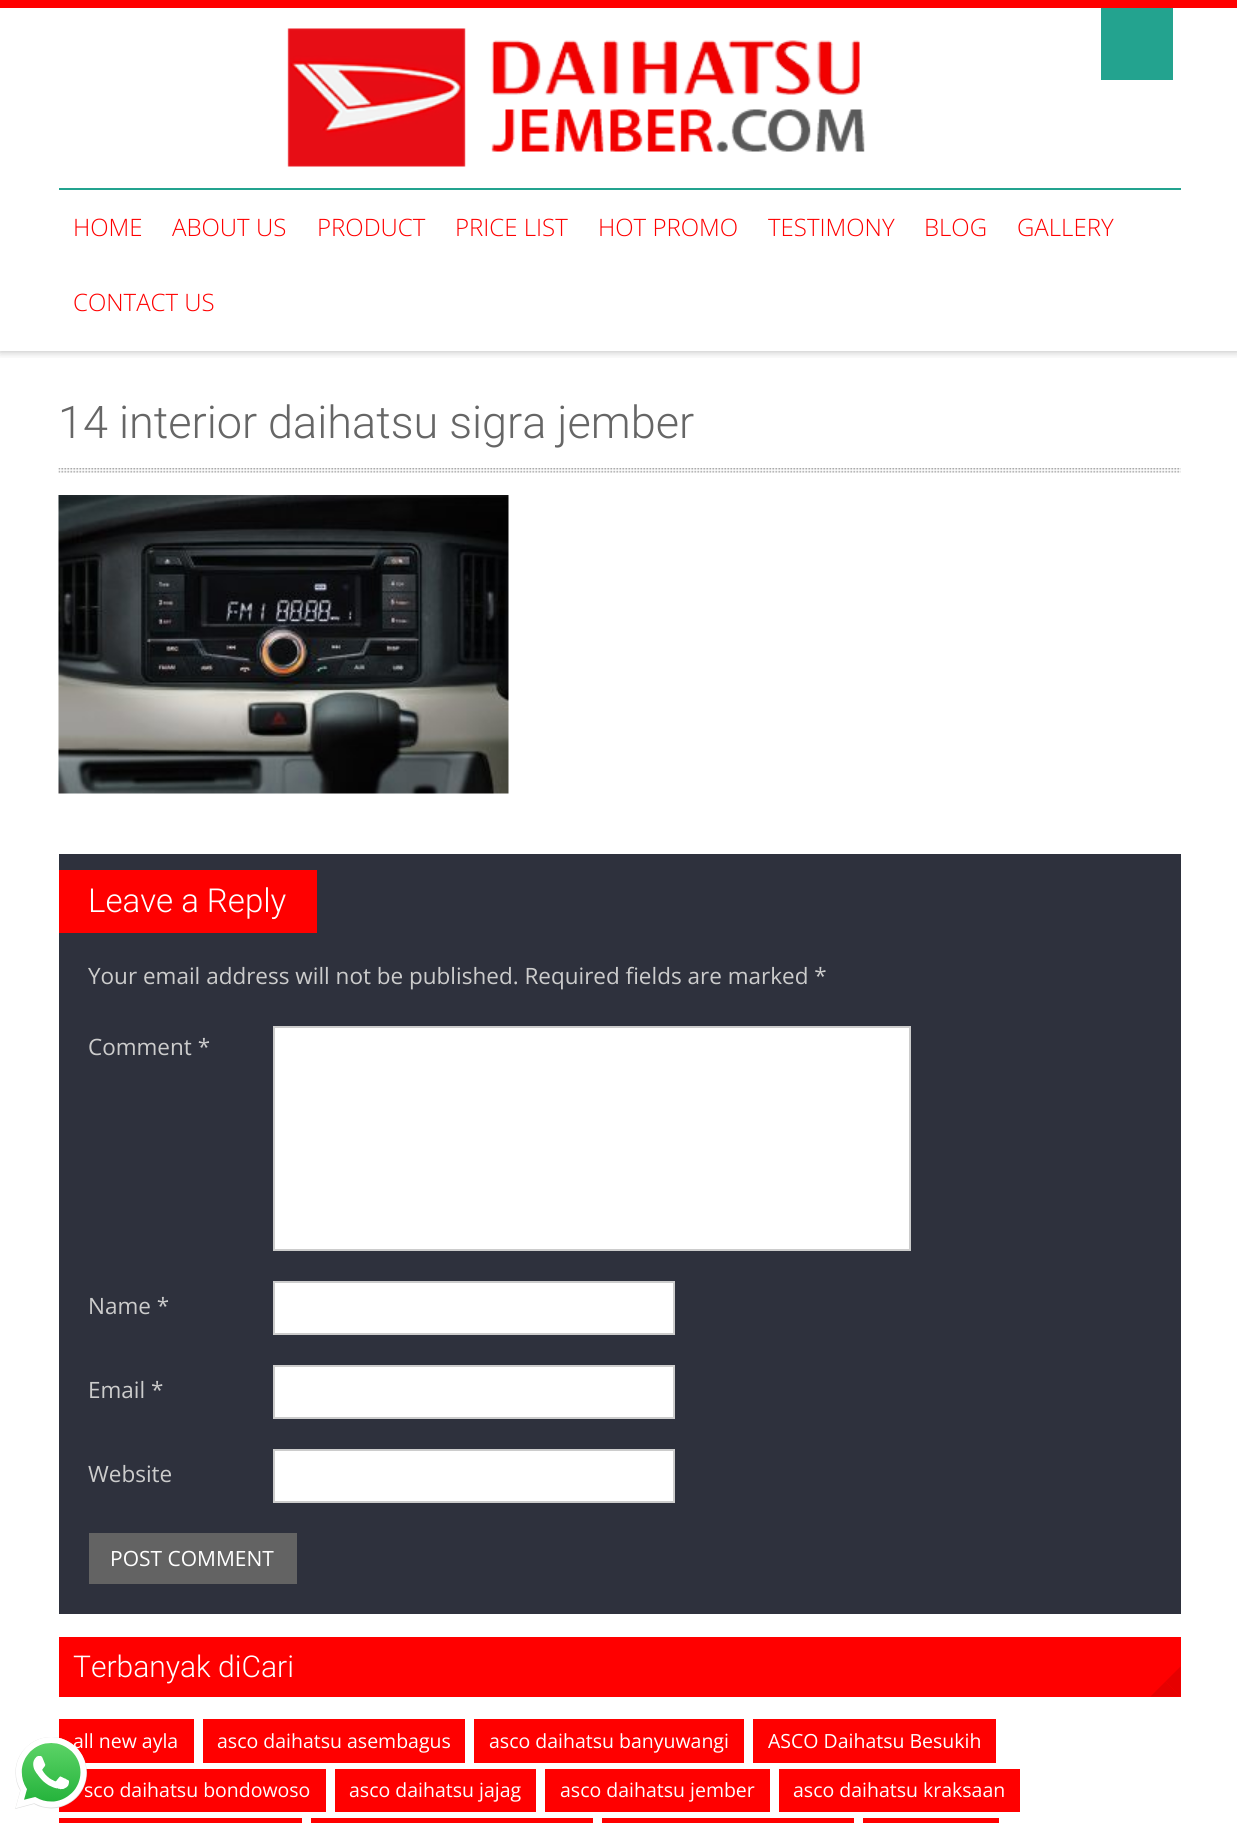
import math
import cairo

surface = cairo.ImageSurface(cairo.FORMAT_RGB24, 1237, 1823)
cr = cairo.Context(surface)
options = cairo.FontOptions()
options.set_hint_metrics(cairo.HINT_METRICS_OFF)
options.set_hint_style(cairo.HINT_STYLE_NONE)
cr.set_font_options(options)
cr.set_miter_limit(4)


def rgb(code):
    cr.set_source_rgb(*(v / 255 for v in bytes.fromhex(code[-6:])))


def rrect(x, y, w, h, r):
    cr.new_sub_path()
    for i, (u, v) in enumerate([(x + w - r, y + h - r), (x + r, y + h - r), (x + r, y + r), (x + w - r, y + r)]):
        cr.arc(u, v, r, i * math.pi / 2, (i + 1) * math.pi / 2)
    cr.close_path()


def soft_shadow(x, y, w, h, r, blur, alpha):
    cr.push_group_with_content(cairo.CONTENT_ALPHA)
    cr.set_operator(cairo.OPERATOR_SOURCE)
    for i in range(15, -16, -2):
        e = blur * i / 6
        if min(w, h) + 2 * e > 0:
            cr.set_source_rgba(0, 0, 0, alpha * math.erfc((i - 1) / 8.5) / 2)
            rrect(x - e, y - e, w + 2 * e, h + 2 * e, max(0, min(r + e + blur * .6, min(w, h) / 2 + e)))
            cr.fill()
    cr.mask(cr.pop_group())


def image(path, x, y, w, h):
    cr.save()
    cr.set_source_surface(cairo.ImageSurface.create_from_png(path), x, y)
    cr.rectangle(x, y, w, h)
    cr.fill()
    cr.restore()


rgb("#ffffff")
cr.paint()
cr.save()
cr.rectangle(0, 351, 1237, 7)
cr.clip()
rgb("#000000")
soft_shadow(0, 0, 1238, 351, 0, 4.5, 0.3)
cr.restore()
rgb("#ff0000")
cr.rectangle(0, 0, 1237, 8)
cr.fill()
image("img/2.png", 287, 28, 578, 139)
rgb("#23a38f")
cr.rectangle(1101, 8, 72, 72)
cr.fill()
cr.rectangle(59, 188, 1122, 2)
cr.fill()
image("img/3.png", 58, 468, 1123, 5)
image("img/4.png", 58, 495, 451, 299)
rgb("#2e313d")
cr.rectangle(59, 854, 1122, 760)
cr.fill()
rgb("#ff0000")
cr.rectangle(59, 870, 258, 63)
cr.fill()
rgb("#ffffff")
cr.rectangle(274, 1027, 636, 223)
cr.fill_preserve()
rgb("#cccccc")
cr.stroke()
rgb("#ffffff")
cr.rectangle(274, 1282, 400, 52)
cr.fill_preserve()
rgb("#cccccc")
cr.stroke()
rgb("#ffffff")
cr.rectangle(274, 1366, 400, 52)
cr.fill_preserve()
rgb("#cccccc")
cr.stroke()
rgb("#ffffff")
cr.rectangle(274, 1450, 400, 52)
cr.fill_preserve()
rgb("#cccccc")
cr.stroke()
rgb("#636363")
cr.rectangle(89, 1533, 208, 51)
cr.fill()
rgb("#ff0000")
cr.rectangle(59, 1637, 1122, 60)
cr.fill()
rgb("#e60000")
cr.new_path()
cr.move_to(1180.5, 1666.5)
cr.line_to(1180.5, 1696.5)
cr.line_to(1165.5, 1681.5)
cr.close_path()
cr.fill()
cr.new_path()
cr.move_to(1180.5, 1696.5)
cr.line_to(1150.5, 1696.5)
cr.line_to(1165.5, 1681.5)
cr.close_path()
cr.fill()
for x, y, w, h, color in [
    (59, 1719, 135, 44, "#ff0000"),
    (203, 1719, 262, 44, "#ff0000"),
    (474, 1719, 270, 44, "#ff0000"),
    (753, 1719, 243, 44, "#ff0000"),
    (59, 1769, 267, 43, "#ff0000"),
    (335, 1769, 201, 43, "#ff0000"),
    (545, 1769, 225, 43, "#ff0000"),
    (779, 1769, 241, 43, "#ff0000"),
    (59, 1818, 243, 5, "#ff0000"),
    (311, 1818, 282, 5, "#ff0000"),
    (602, 1818, 252, 5, "#ff0000"),
    (863, 1818, 136, 5, "#ff0000"),
]:
    rgb(color)
    cr.rectangle(x, y, w, h)
    cr.fill()
cr.select_font_face("Open Sans Light")
cr.set_font_size(24)
for x, y, s in [
    (73, 236, "HOME"),
    (172, 236, "ABOUT US"),
    (317, 236, "PRODUCT"),
    (455, 236, "PRICE LIST"),
    (598, 236, "HOT PROMO"),
    (768, 236, "TESTIMONY"),
    (924, 236, "BLOG"),
    (1017, 236, "GALLERY"),
    (73, 311, "CONTACT US"),
]:
    cr.move_to(x, y)
    cr.show_text(s)
cr.select_font_face("Roboto Light")
cr.set_font_size(45)
rgb("#666666")
cr.move_to(58, 438)
cr.show_text("14 interior daihatsu sigra jember")
cr.set_font_size(33)
rgb("#ffffff")
cr.move_to(88, 912)
cr.show_text("Leave a Reply")
cr.select_font_face("Open Sans")
cr.set_font_size(22.5)
rgb("#cccccc")
for x, y, s in [
    (88, 984, "Your email address will not be published. Required fields are marked *"),
    (88, 1055, "Comment *"),
    (88, 1314, "Name *"),
    (88, 1398, "Email *"),
    (88, 1482, "Website"),
]:
    cr.move_to(x, y)
    cr.show_text(s)
cr.set_font_size(21)
rgb("#ffffff")
cr.move_to(110, 1566)
cr.show_text("POST COMMENT")
cr.select_font_face("Roboto Light")
cr.set_font_size(30)
cr.move_to(73, 1677)
cr.show_text("Terbanyak diCari")
cr.select_font_face("Open Sans")
cr.set_font_size(19.5)
for x, y, s in [
    (73, 1748, "all new ayla"),
    (217, 1748, "asco daihatsu asembagus"),
    (489, 1748, "asco daihatsu banyuwangi"),
    (768, 1748, "ASCO Daihatsu Besukih"),
    (84, 1797, "sco daihatsu bondowoso"),
]:
    cr.move_to(x, y)
    cr.show_text(s)
image("img/1.png", 15, 1737, 72, 72)
for x, y, s in [
    (349, 1797, "asco daihatsu jajag"),
    (560, 1797, "asco daihatsu jember"),
    (793, 1797, "asco daihatsu kraksaan"),
]:
    cr.move_to(x, y)
    cr.show_text(s)
surface.write_to_png("page.png")
